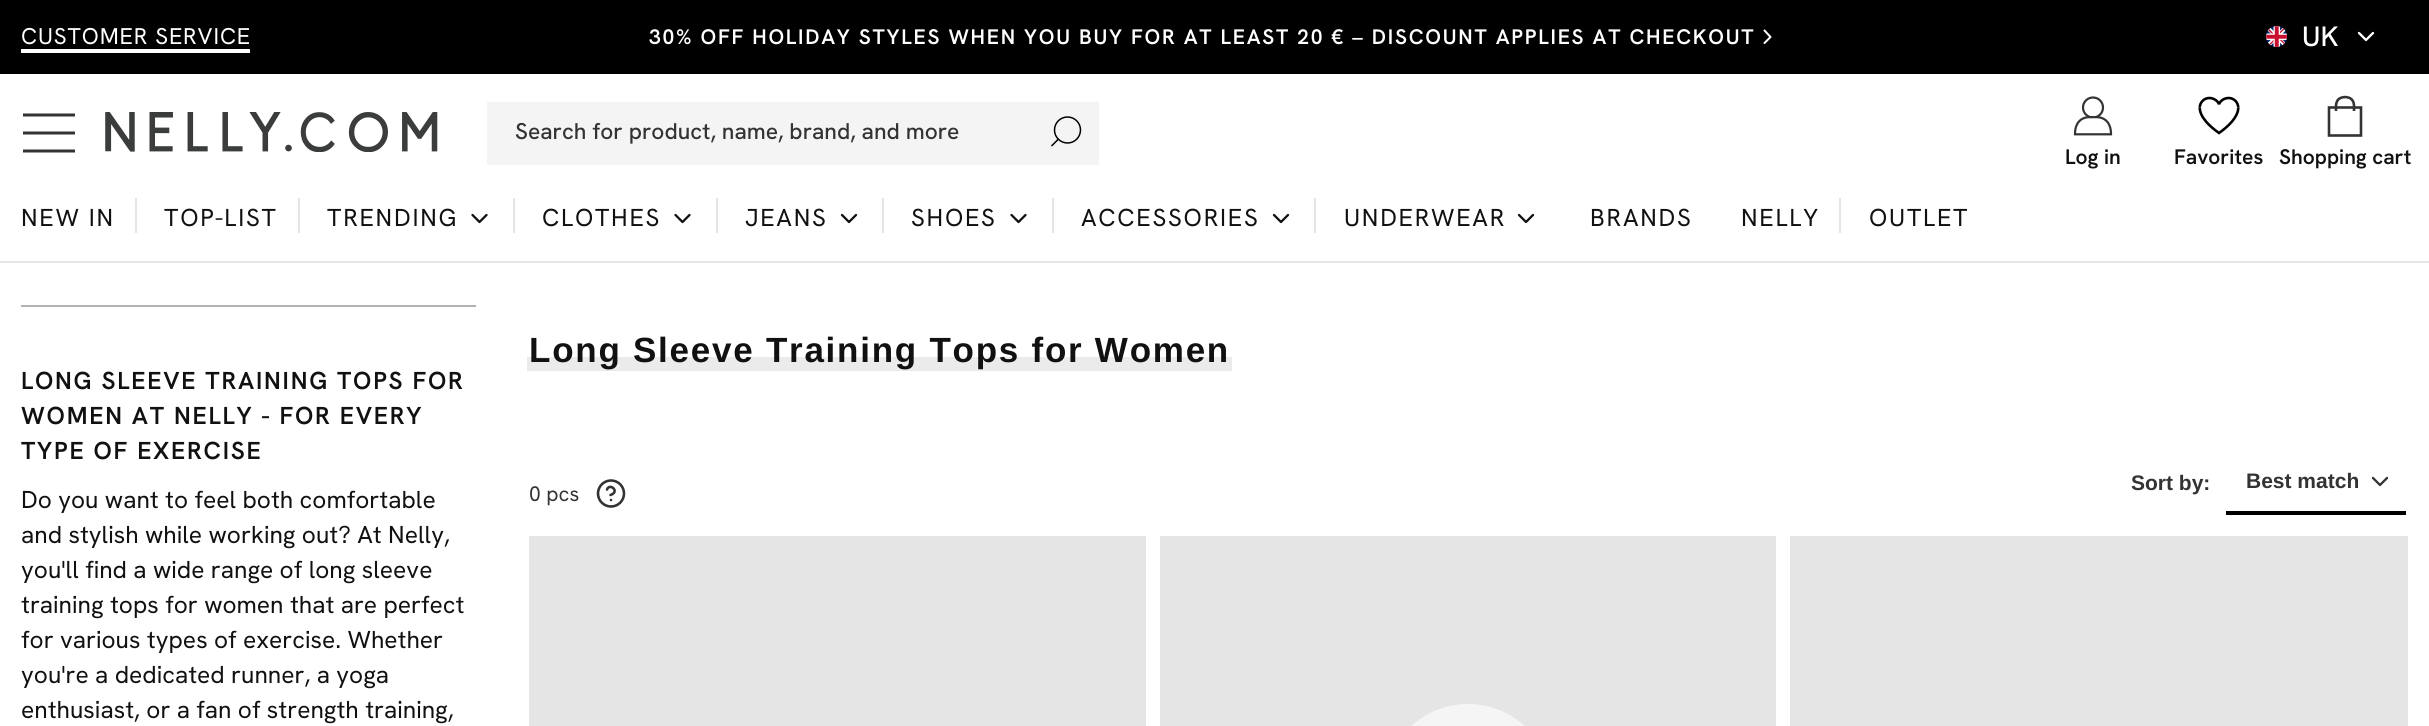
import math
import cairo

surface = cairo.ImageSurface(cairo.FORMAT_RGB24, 2429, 726)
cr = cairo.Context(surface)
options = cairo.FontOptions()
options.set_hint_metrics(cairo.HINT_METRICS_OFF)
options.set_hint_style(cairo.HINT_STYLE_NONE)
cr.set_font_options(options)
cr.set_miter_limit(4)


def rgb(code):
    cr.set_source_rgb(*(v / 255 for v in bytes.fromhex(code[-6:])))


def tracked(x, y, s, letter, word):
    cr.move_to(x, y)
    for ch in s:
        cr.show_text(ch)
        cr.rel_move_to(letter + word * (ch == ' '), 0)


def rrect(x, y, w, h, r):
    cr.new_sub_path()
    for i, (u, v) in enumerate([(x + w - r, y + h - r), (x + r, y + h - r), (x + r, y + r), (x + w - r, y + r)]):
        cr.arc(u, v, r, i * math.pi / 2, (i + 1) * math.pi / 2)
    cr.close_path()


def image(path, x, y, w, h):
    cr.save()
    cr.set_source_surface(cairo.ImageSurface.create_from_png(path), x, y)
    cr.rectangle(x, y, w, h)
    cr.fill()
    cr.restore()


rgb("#ffffff")
cr.paint()
rgb("#000000")
cr.rectangle(0, 0, 2429, 74)
cr.fill()
rgb("#ffffff")
cr.rectangle(21, 49, 229, 4)
cr.fill()
cr.new_path()
cr.move_to(1764.5, 43)
cr.line_to(1770.5, 37)
cr.line_to(1764.5, 30.5)
cr.set_line_cap(cairo.LINE_CAP_ROUND)
cr.set_line_join(cairo.LINE_JOIN_ROUND)
cr.stroke()
image("img/1.png", 2266, 26, 21, 21)
cr.new_path()
cr.move_to(2359, 33)
cr.line_to(2366, 40)
cr.line_to(2373, 33)
cr.set_line_width(2.3)
cr.stroke()
rgb("#e5e5e5")
cr.rectangle(0, 261, 2429, 2)
cr.fill()
cr.new_path()
cr.move_to(23, 115)
cr.line_to(75, 115)
cr.move_to(23, 133)
cr.line_to(75, 133)
cr.move_to(23, 151)
cr.line_to(75, 151)
rgb("#333333")
cr.set_line_width(3)
cr.set_line_cap(cairo.LINE_CAP_BUTT)
cr.set_line_join(cairo.LINE_JOIN_MITER)
cr.stroke()
image("img/2.png", 105, 112, 333, 40)
rgb("#f4f4f4")
cr.rectangle(487, 102, 612, 63)
cr.fill()
cr.arc(1067.5, 130, 13, 0, 2 * math.pi)
rgb("#000000")
cr.set_line_width(1.5)
cr.stroke()
cr.new_path()
cr.move_to(1052, 145.5)
cr.line_to(1058, 139.5)
cr.set_line_cap(cairo.LINE_CAP_SQUARE)
cr.stroke()
image("img/3.png", 2073, 96, 40, 40)
image("img/4.png", 2198, 96, 42, 39)
cr.new_path()
cr.move_to(2329, 107.5)
cr.line_to(2361, 107.5)
cr.line_to(2361, 135.5)
cr.line_to(2329, 135.5)
cr.close_path()
cr.move_to(2336, 111)
cr.curve_to(2336, 108, 2335.5, 104.5, 2337, 101.5)
cr.curve_to(2339, 96, 2349.5, 95.5, 2352.5, 100.5)
cr.curve_to(2354.5, 103, 2354, 108, 2354, 111)
rgb("#333333")
cr.set_line_width(2.6)
cr.set_line_cap(cairo.LINE_CAP_BUTT)
cr.stroke()
rgb("#e5e5e5")
cr.rectangle(135, 198, 2, 35)
cr.fill()
cr.rectangle(298, 198, 2, 35)
cr.fill()
cr.new_path()
cr.move_to(472.5, 215)
cr.line_to(479.5, 222)
cr.line_to(486.5, 215)
rgb("#111111")
cr.set_line_width(2.3)
cr.set_line_cap(cairo.LINE_CAP_ROUND)
cr.set_line_join(cairo.LINE_JOIN_ROUND)
cr.stroke()
rgb("#e5e5e5")
cr.rectangle(513, 198, 2, 35)
cr.fill()
cr.new_path()
cr.move_to(675.5, 215)
cr.line_to(682.5, 222)
cr.line_to(689.5, 215)
rgb("#111111")
cr.stroke()
rgb("#e5e5e5")
cr.rectangle(716, 198, 2, 35)
cr.fill()
cr.new_path()
cr.move_to(842, 215)
cr.line_to(849, 222)
cr.line_to(856, 215)
rgb("#111111")
cr.stroke()
rgb("#e5e5e5")
cr.rectangle(882, 198, 2, 35)
cr.fill()
cr.new_path()
cr.move_to(1011.5, 215)
cr.line_to(1018.5, 222)
cr.line_to(1025.5, 215)
rgb("#111111")
cr.stroke()
rgb("#e5e5e5")
cr.rectangle(1052, 198, 2, 35)
cr.fill()
cr.new_path()
cr.move_to(1274, 215)
cr.line_to(1281, 222)
cr.line_to(1288, 215)
rgb("#111111")
cr.stroke()
rgb("#e5e5e5")
cr.rectangle(1314, 198, 2, 35)
cr.fill()
cr.new_path()
cr.move_to(1519, 215)
cr.line_to(1526, 222)
cr.line_to(1533, 215)
rgb("#111111")
cr.stroke()
for x, y, w, h, color in [
    (1839, 198, 2, 35, "#e5e5e5"),
    (21, 305, 455, 2, "#b2b2b2"),
    (527, 357, 705, 14, "#ebebeb"),
]:
    rgb(color)
    cr.rectangle(x, y, w, h)
    cr.fill()
cr.arc(611, 493.5, 13, 0, 2 * math.pi)
rgb("#333333")
cr.set_line_width(2.6)
cr.set_line_cap(cairo.LINE_CAP_BUTT)
cr.set_line_join(cairo.LINE_JOIN_MITER)
cr.stroke()
cr.new_path()
cr.move_to(607, 489.5)
cr.curve_to(609.5, 482.5, 620.5, 491.5, 610.5, 495)
cr.move_to(611, 500)
cr.line_to(611, 500)
cr.set_line_cap(cairo.LINE_CAP_ROUND)
cr.set_line_join(cairo.LINE_JOIN_ROUND)
cr.stroke()
rgb("#000000")
cr.rectangle(2226, 511, 180, 4)
cr.fill()
cr.new_path()
cr.move_to(2373, 478)
cr.line_to(2380, 485)
cr.line_to(2387, 478)
rgb("#333333")
cr.set_line_width(2.3)
cr.stroke()
for x, y, w, h, color in [
    (529, 536, 617, 190, "#e5e5e5"),
    (1160, 536, 616, 190, "#e5e5e5"),
    (1790, 536, 618, 190, "#e5e5e5"),
]:
    rgb(color)
    cr.rectangle(x, y, w, h)
    cr.fill()
rgb("#f5f5f5")
rrect(1384, 704, 168, 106, 84)
cr.fill()
cr.select_font_face("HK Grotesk")
cr.set_font_size(22.75)
rgb("#ffffff")
tracked(21, 44, "CUSTOMER SERVICE", 0.9, 0)
cr.select_font_face("HK Grotesk SemiBold")
cr.set_font_size(21)
tracked(649, 44, "30% OFF HOLIDAY STYLES WHEN YOU BUY FOR AT LEAST 20 € – DISCOUNT APPLIES AT CHECKOUT", 1.75, 0)
cr.select_font_face("HK Grotesk Medium")
cr.set_font_size(28)
cr.move_to(2302, 46)
cr.show_text("UK")
cr.set_font_size(22.75)
rgb("#333333")
cr.move_to(515, 139)
cr.show_text("Search for product, name, brand, and more")
cr.select_font_face("HK Grotesk SemiBold")
cr.set_font_size(21)
rgb("#111111")
for x, y, s in [
    (2065, 164, "Log in"),
    (2174, 164, "Favorites"),
    (2279, 164, "Shopping cart"),
]:
    cr.move_to(x, y)
    cr.show_text(s)
cr.select_font_face("HK Grotesk")
cr.set_font_size(24.5)
for x, y, s in [
    (21, 226, "NEW IN"),
    (164, 226, "TOP-LIST"),
    (327, 226, "TRENDING"),
    (542, 226, "CLOTHES"),
    (745, 226, "JEANS"),
    (911, 226, "SHOES"),
    (1081, 226, "ACCESSORIES"),
    (1344, 226, "UNDERWEAR"),
    (1590, 226, "BRANDS"),
    (1741, 226, "NELLY"),
    (1869, 226, "OUTLET"),
]:
    tracked(x, y, s, 1.75, 0)
cr.select_font_face("HK Grotesk SemiBold")
for x, y, s in [
    (21, 389, "LONG SLEEVE TRAINING TOPS FOR"),
    (21, 424, "WOMEN AT NELLY - FOR EVERY"),
    (21, 459, "TYPE OF EXERCISE"),
]:
    tracked(x, y, s, 1.75, 0)
cr.select_font_face("HK Grotesk")
for x, y, s in [
    (21, 508, "Do you want to feel both comfortable"),
    (21, 543, "and stylish while working out? At Nelly,"),
    (21, 578, "you'll find a wide range of long sleeve"),
    (21, 613, "training tops for women that are perfect"),
    (21, 648, "for various types of exercise. Whether"),
    (21, 683, "you're a dedicated runner, a yoga"),
    (21, 718, "enthusiast, or a fan of strength training,"),
]:
    cr.move_to(x, y)
    cr.show_text(s)
cr.select_font_face("Liberation Sans", cairo.FONT_SLANT_NORMAL, cairo.FONT_WEIGHT_BOLD)
cr.set_font_size(35)
tracked(529, 362, "Long Sleeve Training Tops for Women", 1.75, 0)
cr.select_font_face("HK Grotesk")
cr.set_font_size(21)
rgb("#333333")
cr.move_to(529, 501)
cr.show_text("0 pcs")
cr.select_font_face("Liberation Sans", cairo.FONT_SLANT_NORMAL, cairo.FONT_WEIGHT_BOLD)
cr.move_to(2131, 490)
cr.show_text("Sort by:")
cr.move_to(2246, 488)
cr.show_text("Best match")
surface.write_to_png("page.png")
